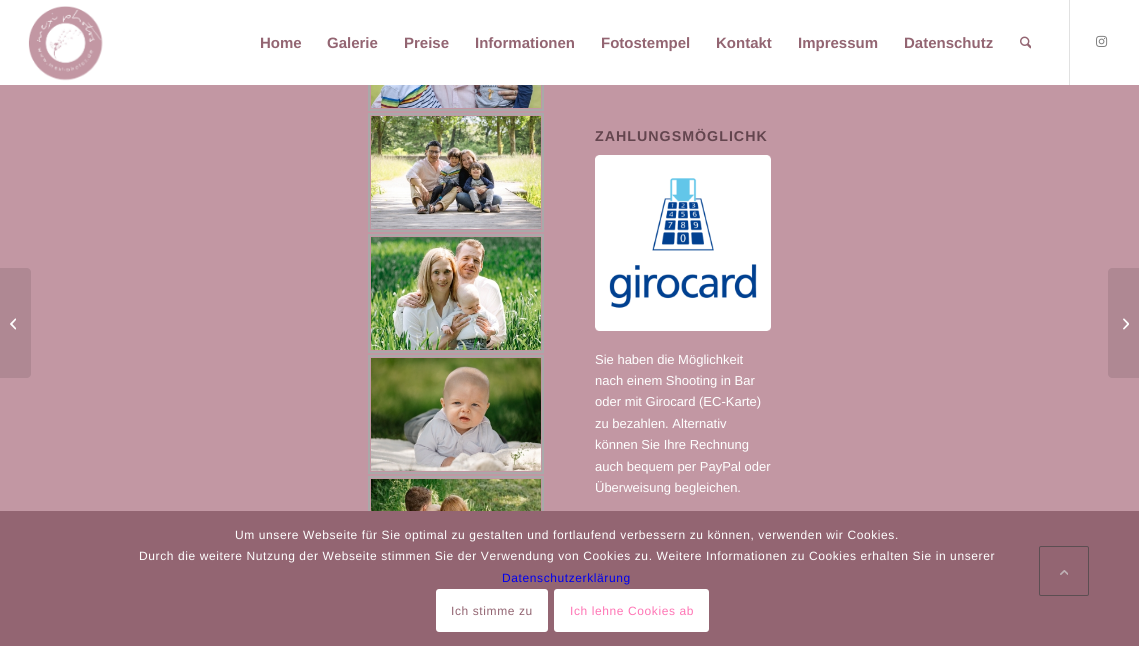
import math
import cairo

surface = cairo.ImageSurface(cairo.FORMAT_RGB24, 1139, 646)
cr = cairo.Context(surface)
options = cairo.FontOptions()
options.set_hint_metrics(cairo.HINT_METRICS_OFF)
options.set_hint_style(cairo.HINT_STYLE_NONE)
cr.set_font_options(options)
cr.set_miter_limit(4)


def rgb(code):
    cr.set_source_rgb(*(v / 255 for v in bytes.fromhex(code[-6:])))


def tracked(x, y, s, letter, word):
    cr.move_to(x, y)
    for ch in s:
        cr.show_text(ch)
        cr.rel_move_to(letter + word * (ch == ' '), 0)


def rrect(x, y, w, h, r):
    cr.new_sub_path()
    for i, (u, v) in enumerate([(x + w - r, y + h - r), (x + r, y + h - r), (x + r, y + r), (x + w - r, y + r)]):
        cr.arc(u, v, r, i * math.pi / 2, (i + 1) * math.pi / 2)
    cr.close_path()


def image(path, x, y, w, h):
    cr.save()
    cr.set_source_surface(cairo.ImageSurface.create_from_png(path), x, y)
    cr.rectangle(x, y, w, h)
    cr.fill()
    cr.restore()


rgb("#c297a3")
cr.paint()
cr.rectangle(369, -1, 174, 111)
rgb("#a9a9a9")
cr.stroke()
rgb("#ffffff")
cr.rectangle(0, 0, 1139, 85)
cr.fill()
image("img/1.png", 28, 6, 75, 75)
rgb("#e1e1e1")
cr.rectangle(1069, 0, 1, 85)
cr.fill()
image("img/2.png", 1020, 36, 11, 13)
image("img/3.png", 1096, 35, 12, 12)
rgb("#af8893")
cr.new_path()
cr.move_to(0, 268)
cr.line_to(27, 268)
cr.curve_to(29, 268, 31, 270, 31, 272)
cr.line_to(31, 374)
cr.curve_to(31, 376, 29, 378, 27, 378)
cr.line_to(0, 378)
cr.close_path()
cr.fill()
image("img/4.png", 10, 318, 6, 12)
image("img/5.png", 371, 85, 170, 23)
cr.rectangle(369, 114, 174, 117)
rgb("#a9a9a9")
cr.stroke()
image("img/6.png", 371, 116, 170, 113)
cr.rectangle(369, 235, 174, 117)
cr.stroke()
image("img/7.png", 371, 237, 170, 113)
cr.rectangle(369, 356, 174, 117)
cr.stroke()
image("img/8.png", 371, 358, 170, 113)
cr.rectangle(369, 477, 174, 117)
cr.stroke()
image("img/9.png", 371, 479, 170, 32)
image("img/10.png", 595, 155, 176, 176)
rgb("#af8893")
cr.new_path()
cr.move_to(1112, 268)
cr.line_to(1139, 268)
cr.line_to(1139, 378)
cr.line_to(1112, 378)
cr.curve_to(1110, 378, 1108, 376, 1108, 374)
cr.line_to(1108, 272)
cr.curve_to(1108, 270, 1110, 268, 1112, 268)
cr.close_path()
cr.fill()
image("img/11.png", 1123, 318, 6, 12)
rgb("#936572")
cr.rectangle(0, 511, 1139, 135)
cr.fill()
rgb("#ffffff")
rrect(436, 589, 112, 43, 3)
cr.fill()
rrect(555, 590, 153, 41, 2)
cr.fill_preserve()
cr.stroke()
rrect(1039.5, 546.5, 49, 49, 1.5)
rgb("#5c4e52")
cr.set_line_width(1)
cr.stroke()
image("img/12.png", 1060, 570, 8, 5)
cr.select_font_face("Liberation Sans", cairo.FONT_SLANT_NORMAL, cairo.FONT_WEIGHT_BOLD)
cr.set_font_size(15)
rgb("#936572")
for x, y, s in [
    (260, 48, "Home"),
    (327, 48, "Galerie"),
    (404, 48, "Preise"),
    (475, 48, "Informationen"),
    (601, 48, "Fotostempel"),
    (716, 48, "Kontakt"),
    (798, 48, "Impressum"),
    (904, 48, "Datenschutz"),
]:
    cr.move_to(x, y)
    cr.show_text(s)
cr.set_font_size(14.25)
rgb("#63454e")
tracked(595, 141, "ZAHLUNGSMÖGLICHK", 1, 0)
cr.select_font_face("Liberation Sans")
cr.set_font_size(13)
rgb("#ffffff")
for x, y, s in [
    (595, 364, "Sie haben die Möglichkeit"),
    (595, 385, "nach einem Shooting in Bar"),
    (595, 406, "oder mit Girocard (EC-Karte)"),
    (595, 428, "zu bezahlen. Alternativ"),
    (595, 449, "können Sie Ihre Rechnung"),
    (595, 471, "auch bequem per PayPal oder"),
    (595, 492, "Überweisung begleichen."),
]:
    cr.move_to(x, y)
    cr.show_text(s)
cr.set_font_size(12)
tracked(235, 539, "Um unsere Webseite für Sie optimal zu gestalten und fortlaufend verbessern zu können, verwenden wir Cookies.", 0.6, 0)
tracked(139, 560, "Durch die weitere Nutzung der Webseite stimmen Sie der Verwendung von Cookies zu. Weitere Informationen zu Cookies erhalten Sie in unserer", 0.6, 0)
rgb("#0000ee")
tracked(502, 582, "Datenschutzerklärung", 0.6, 0)
rgb("#936572")
tracked(451, 615, "Ich stimme zu", 0.6, 0)
rgb("#ff75b5")
tracked(570, 615, "Ich lehne Cookies ab", 0.6, 0)
surface.write_to_png("page.png")
